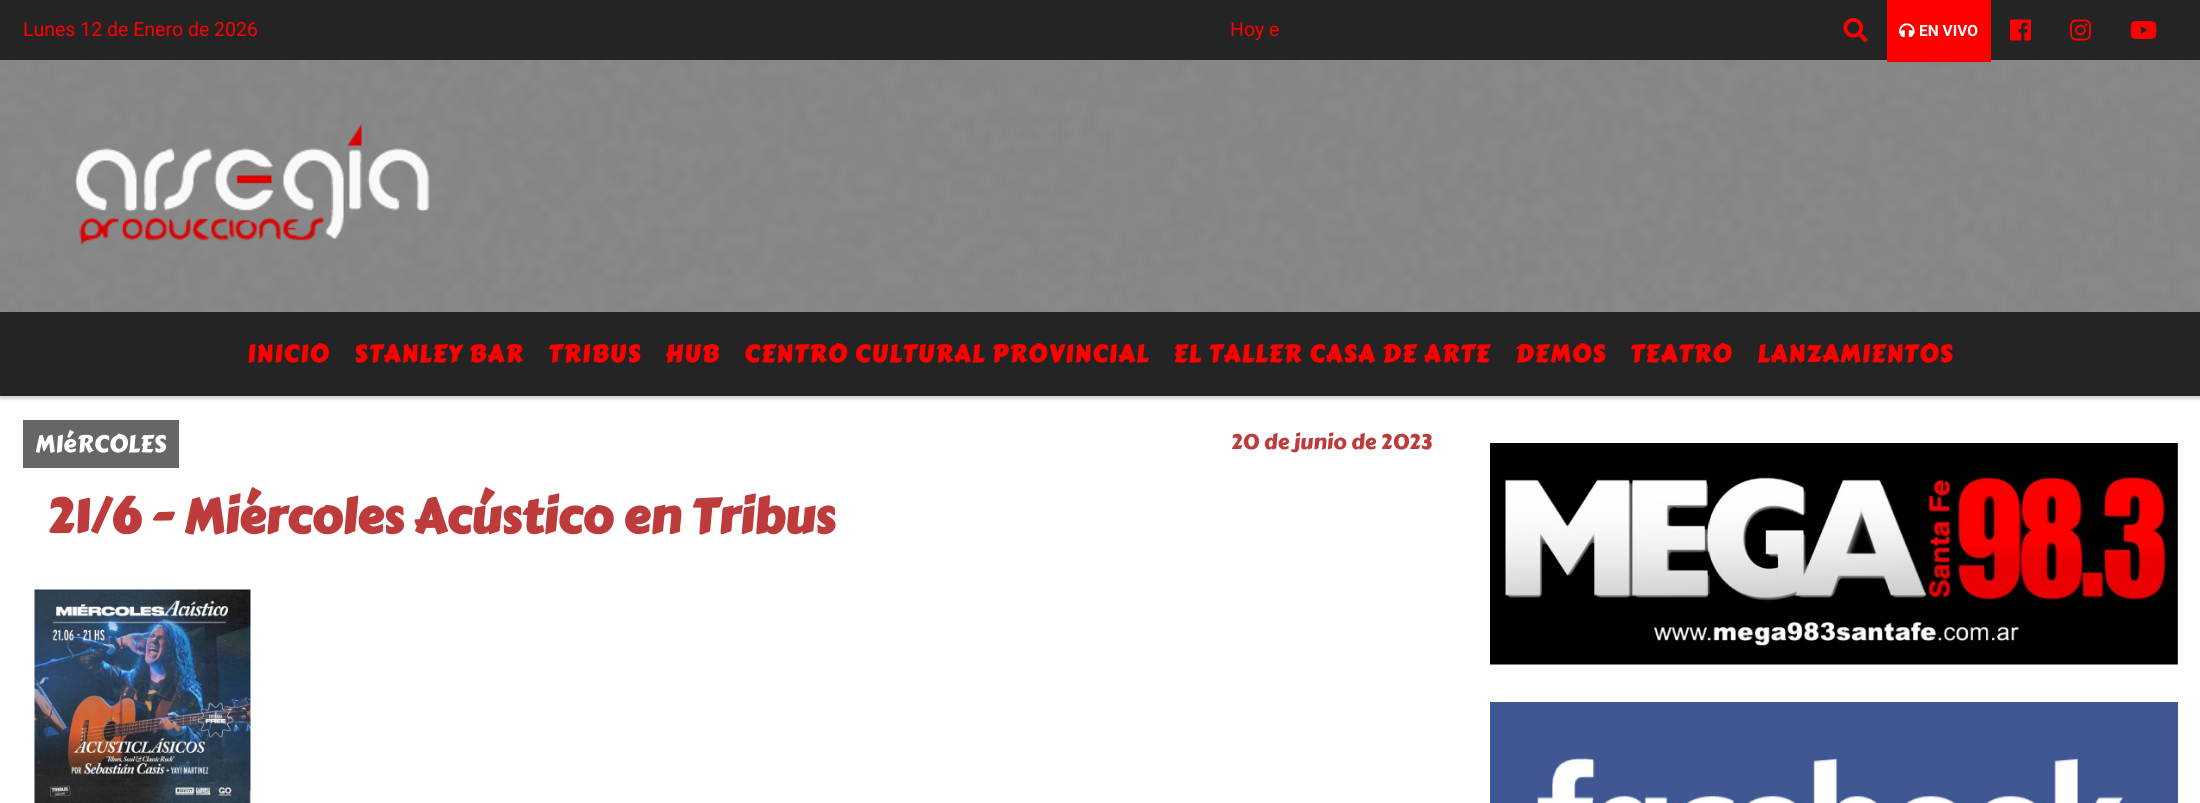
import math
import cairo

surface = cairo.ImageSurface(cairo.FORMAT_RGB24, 2200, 803)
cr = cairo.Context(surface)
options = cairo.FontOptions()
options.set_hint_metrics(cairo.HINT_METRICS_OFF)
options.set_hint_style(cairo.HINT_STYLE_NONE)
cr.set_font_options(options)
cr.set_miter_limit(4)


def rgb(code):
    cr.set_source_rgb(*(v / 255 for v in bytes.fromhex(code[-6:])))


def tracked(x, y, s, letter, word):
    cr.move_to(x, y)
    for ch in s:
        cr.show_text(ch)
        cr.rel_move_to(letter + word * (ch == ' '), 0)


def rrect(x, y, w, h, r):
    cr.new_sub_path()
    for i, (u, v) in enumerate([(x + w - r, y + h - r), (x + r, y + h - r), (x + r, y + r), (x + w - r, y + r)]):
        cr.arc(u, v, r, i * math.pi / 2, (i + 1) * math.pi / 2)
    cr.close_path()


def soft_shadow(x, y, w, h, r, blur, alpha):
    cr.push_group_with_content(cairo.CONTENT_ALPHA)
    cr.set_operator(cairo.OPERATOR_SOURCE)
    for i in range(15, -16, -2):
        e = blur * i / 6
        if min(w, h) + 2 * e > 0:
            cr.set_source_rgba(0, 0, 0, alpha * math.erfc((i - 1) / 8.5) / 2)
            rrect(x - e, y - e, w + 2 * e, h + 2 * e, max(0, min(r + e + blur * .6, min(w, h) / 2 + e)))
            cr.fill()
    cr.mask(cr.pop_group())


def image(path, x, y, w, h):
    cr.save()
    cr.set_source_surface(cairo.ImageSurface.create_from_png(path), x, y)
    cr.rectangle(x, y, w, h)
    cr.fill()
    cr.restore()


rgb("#242424")
cr.paint()
image("img/1.png", 1843, 18, 25, 24)
image("img/6.png", 0, 60, 2200, 252)
rgb("#ff0000")
cr.rectangle(1887, 0, 104, 62)
cr.fill()
image("img/2.png", 1899, 23, 16, 14)
image("img/3.png", 2010, 19, 21, 22)
image("img/4.png", 2070, 19, 21, 22)
image("img/5.png", 2130, 21, 27, 18)
image("img/7.png", 75, 124, 355, 121)
rgb("#ffffff")
cr.rectangle(0, 396, 2200, 407)
cr.fill()
rgb("#000000")
soft_shadow(0, 315, 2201, 84, 0, 1.5, 0.18)
rgb("#242424")
cr.rectangle(0, 315, 2200, 81)
cr.fill()
rgb("#666666")
cr.rectangle(23, 420, 156, 48)
cr.fill()
image("img/8.png", 34, 589, 217, 214)
image("img/9.png", 1490, 443, 688, 222)
image("img/10.png", 1490, 702, 688, 101)
cr.select_font_face("Roboto")
cr.set_font_size(19.5)
rgb("#ff0000")
cr.move_to(23, 36)
cr.show_text("Lunes 12 de Enero de 2026")
cr.move_to(1230, 36)
cr.show_text("Hoy e")
cr.select_font_face("Roboto", cairo.FONT_SLANT_NORMAL, cairo.FONT_WEIGHT_BOLD)
cr.set_font_size(15.5)
rgb("#ffffff")
cr.move_to(1919, 36)
cr.show_text("EN VIVO")
cr.select_font_face("Carter One", cairo.FONT_SLANT_NORMAL, cairo.FONT_WEIGHT_BOLD)
cr.set_font_size(24)
rgb("#ff0000")
for x, y, s in [
    (247, 362, "INICIO"),
    (354, 362, "STANLEY BAR"),
    (548, 362, "TRIBUS"),
    (665, 362, "HUB"),
    (744, 362, "CENTRO CULTURAL PROVINCIAL"),
    (1173, 362, "EL TALLER CASA DE ARTE"),
    (1515, 362, "DEMOS"),
    (1630, 362, "TEATRO"),
    (1757, 362, "LANZAMIENTOS"),
]:
    tracked(x, y, s, 1.5, 0)
cr.select_font_face("Carter One")
rgb("#ffffff")
cr.move_to(35, 452)
cr.show_text("MIéRCOLES")
cr.set_font_size(21)
rgb("#be3b3b")
cr.move_to(1231, 449)
cr.show_text("20 de junio de 2023")
cr.select_font_face("Carter One", cairo.FONT_SLANT_NORMAL, cairo.FONT_WEIGHT_BOLD)
cr.set_font_size(48)
cr.move_to(47, 533)
cr.show_text("21/6 - Miércoles Acústico en Tribus")
surface.write_to_png("page.png")
